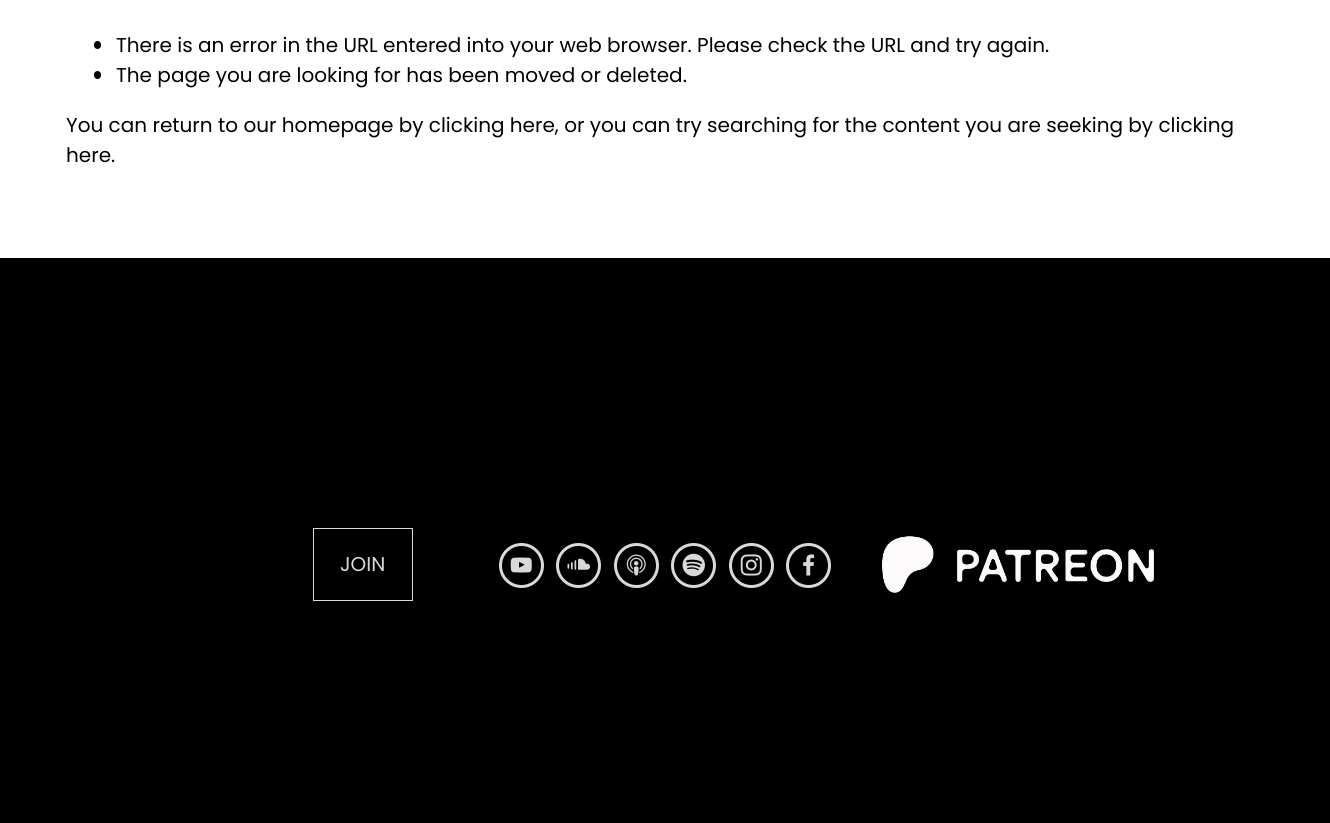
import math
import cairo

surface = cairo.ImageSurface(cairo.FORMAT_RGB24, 1330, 823)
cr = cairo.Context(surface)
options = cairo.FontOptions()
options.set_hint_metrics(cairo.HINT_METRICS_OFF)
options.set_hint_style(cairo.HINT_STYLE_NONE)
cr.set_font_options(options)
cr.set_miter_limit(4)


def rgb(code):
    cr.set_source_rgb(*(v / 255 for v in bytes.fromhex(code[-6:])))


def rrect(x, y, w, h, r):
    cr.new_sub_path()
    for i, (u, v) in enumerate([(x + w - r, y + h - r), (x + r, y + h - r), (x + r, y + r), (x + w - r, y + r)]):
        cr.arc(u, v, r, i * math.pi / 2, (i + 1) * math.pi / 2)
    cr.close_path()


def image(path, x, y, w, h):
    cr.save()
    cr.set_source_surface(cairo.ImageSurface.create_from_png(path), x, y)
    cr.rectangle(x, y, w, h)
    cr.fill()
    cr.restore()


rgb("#ffffff")
cr.paint()
rgb("#000000")
rrect(94, 41, 7, 8, 3.5)
cr.fill()
rrect(94, 71, 7, 8, 3.5)
cr.fill()
cr.rectangle(0, 258, 1330, 565)
cr.fill()
cr.rectangle(313.5, 528.5, 99, 72)
rgb("#d9d9d9")
cr.set_line_width(1)
cr.stroke()
cr.arc(521.5, 565.5, 21, 0, 2 * math.pi)
cr.set_line_width(3)
cr.stroke()
image("img/1.png", 510, 557, 22, 16)
cr.arc(578.5, 565.5, 21, 0, 2 * math.pi)
cr.stroke()
image("img/2.png", 567, 558, 24, 12)
cr.arc(636.5, 565.5, 21, 0, 2 * math.pi)
cr.stroke()
image("img/3.png", 626, 554, 20, 22)
cr.arc(693.5, 565.5, 21, 0, 2 * math.pi)
cr.stroke()
image("img/4.png", 682, 553, 23, 24)
cr.arc(751.5, 565.5, 21, 0, 2 * math.pi)
cr.stroke()
image("img/5.png", 740, 554, 22, 22)
cr.arc(808.5, 565.5, 21, 0, 2 * math.pi)
cr.stroke()
image("img/6.png", 803, 554, 12, 22)
image("img/7.png", 882, 536, 272, 57)
cr.select_font_face("Poppins")
cr.set_font_size(20)
rgb("#000000")
for x, y, s in [
    (116, 52, "There is an error in the URL entered into your web browser. Please check the URL and try again."),
    (116, 82, "The page you are looking for has been moved or deleted."),
    (66, 132, "You can return to our homepage by clicking here, or you can try searching for the content you are seeking by clicking"),
    (66, 162, "here."),
]:
    cr.move_to(x, y)
    cr.show_text(s)
rgb("#d9d9d9")
cr.move_to(340, 571)
cr.show_text("JOIN")
surface.write_to_png("page.png")
